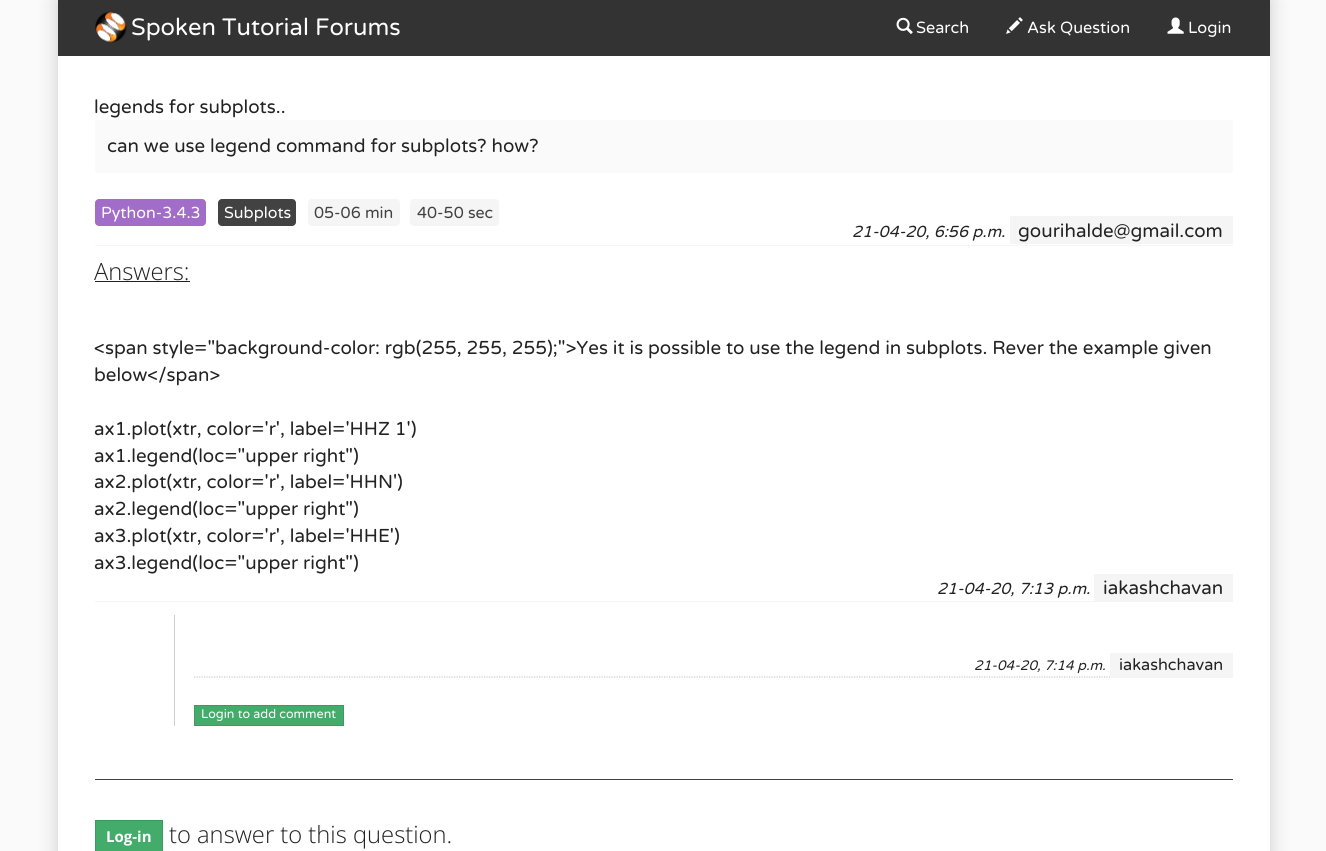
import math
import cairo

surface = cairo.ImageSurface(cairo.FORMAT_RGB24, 1326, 851)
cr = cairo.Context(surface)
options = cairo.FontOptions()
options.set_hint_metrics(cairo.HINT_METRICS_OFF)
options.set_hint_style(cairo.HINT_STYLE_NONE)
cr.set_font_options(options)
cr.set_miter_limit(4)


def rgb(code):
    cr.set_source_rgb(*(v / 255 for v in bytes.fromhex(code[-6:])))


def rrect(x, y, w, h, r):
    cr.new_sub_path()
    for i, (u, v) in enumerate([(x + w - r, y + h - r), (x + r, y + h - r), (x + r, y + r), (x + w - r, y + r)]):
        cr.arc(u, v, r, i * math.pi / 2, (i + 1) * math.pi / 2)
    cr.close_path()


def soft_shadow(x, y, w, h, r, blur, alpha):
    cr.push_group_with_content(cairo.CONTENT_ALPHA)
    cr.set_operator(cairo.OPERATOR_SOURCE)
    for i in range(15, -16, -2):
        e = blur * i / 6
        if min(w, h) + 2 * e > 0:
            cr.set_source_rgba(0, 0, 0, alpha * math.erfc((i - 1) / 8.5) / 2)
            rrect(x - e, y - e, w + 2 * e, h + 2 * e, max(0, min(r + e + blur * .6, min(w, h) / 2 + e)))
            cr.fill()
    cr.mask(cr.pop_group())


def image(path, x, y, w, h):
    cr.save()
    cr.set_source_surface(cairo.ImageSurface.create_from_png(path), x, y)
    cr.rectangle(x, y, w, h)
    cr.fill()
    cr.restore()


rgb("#fafafa")
cr.paint()
rgb("#cccccc")
soft_shadow(58, 0, 1212, 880, 0, 9.5, 1)
rgb("#333333")
cr.rectangle(58, 0, 1212, 56)
cr.fill()
image("img/1.png", 95, 11, 32, 32)
image("img/2.png", 896, 17, 17, 17)
image("img/3.png", 1006, 17, 17, 17)
image("img/4.png", 1167, 17, 17, 17)
for x, y, w, h, color in [
    (58, 56, 1212, 795, "#ffffff"),
    (95, 245, 1138, 1, "#f5f5f5"),
    (95, 120, 1138, 53, "#fafafa"),
]:
    rgb(color)
    cr.rectangle(x, y, w, h)
    cr.fill()
rgb("#a26dc8")
rrect(95, 199, 111, 27, 4)
cr.fill()
rgb("#424242")
rrect(218, 199, 78, 27, 4)
cr.fill()
rgb("#f5f5f5")
rrect(308, 199, 92, 27, 4)
cr.fill()
rrect(410, 199, 89, 27, 4)
cr.fill()
for x, y, w, h, color in [
    (1010, 216, 223, 28, "#f5f5f5"),
    (95, 281, 95, 1, "#222222"),
    (95, 601, 1138, 1, "#f5f5f5"),
    (1094, 574, 139, 27, "#f5f5f5"),
    (174, 615, 1, 111, "#cccccc"),
]:
    rgb(color)
    cr.rectangle(x, y, w, h)
    cr.fill()
cr.new_path()
cr.move_to(194, 677)
cr.line_to(1232.5, 677)
cr.set_line_width(1.2)
cr.set_dash([1.25, 1.25])
cr.stroke()
rgb("#f5f5f5")
cr.rectangle(1110, 653, 123, 25)
cr.fill()
rgb("#43ac6a")
cr.rectangle(194.5, 705.5, 149, 20)
cr.fill_preserve()
rgb("#3c9a5f")
cr.set_line_width(1)
cr.set_dash([])
cr.stroke()
rgb("#424242")
cr.rectangle(95, 779, 1138, 1)
cr.fill()
rgb("#43ac6a")
cr.rectangle(95.5, 820.5, 67, 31)
cr.fill_preserve()
rgb("#3c9a5f")
cr.stroke()
cr.select_font_face("Varela Round")
cr.set_font_size(23.75)
rgb("#ffffff")
cr.move_to(131, 35)
cr.show_text("Spoken Tutorial Forums")
cr.set_font_size(16.25)
for x, y, s in [
    (916, 33, "Search"),
    (1027, 33, "Ask Question"),
    (1188, 33, "Login"),
]:
    cr.move_to(x, y)
    cr.show_text(s)
cr.set_font_size(18.75)
rgb("#222222")
cr.move_to(94, 113)
cr.show_text("legends for subplots..")
cr.move_to(107, 152)
cr.show_text("can we use legend command for subplots? how?")
cr.set_font_size(16)
rgb("#ffffff")
cr.move_to(101, 218)
cr.show_text("Python-3.4.3")
cr.move_to(224, 218)
cr.show_text("Subplots")
rgb("#424242")
cr.move_to(314, 218)
cr.show_text("05-06 min")
cr.move_to(417, 218)
cr.show_text("40-50 sec")
cr.select_font_face("Varela Round", cairo.FONT_SLANT_ITALIC)
rgb("#222222")
cr.move_to(852, 237)
cr.show_text("21-04-20, 6:56 p.m.")
cr.select_font_face("Varela Round")
cr.set_font_size(18.75)
cr.move_to(1018, 237)
cr.show_text("gourihalde@gmail.com")
cr.select_font_face("Open Sans Light")
cr.set_font_size(23.75)
cr.move_to(94, 280)
cr.show_text("Answers:")
cr.select_font_face("Varela Round")
cr.set_font_size(18.75)
for x, y, s in [
    (94, 354, "<span style=\"background-color: rgb(255, 255, 255);\">Yes it is possible to use the legend in subplots. Rever the example given"),
    (94, 381, "below</span>"),
    (94, 435, "ax1.plot(xtr, color='r', label='HHZ 1')"),
    (94, 462, "ax1.legend(loc=\"upper right\")"),
    (94, 488, "ax2.plot(xtr, color='r', label='HHN')"),
    (94, 515, "ax2.legend(loc=\"upper right\")"),
    (94, 542, "ax3.plot(xtr, color='r', label='HHE')"),
    (94, 569, "ax3.legend(loc=\"upper right\")"),
]:
    cr.move_to(x, y)
    cr.show_text(s)
cr.select_font_face("Varela Round", cairo.FONT_SLANT_ITALIC)
cr.set_font_size(16)
cr.move_to(937, 594)
cr.show_text("21-04-20, 7:13 p.m.")
cr.select_font_face("Varela Round")
cr.set_font_size(18.75)
cr.move_to(1103, 594)
cr.show_text("iakashchavan")
cr.select_font_face("Varela Round", cairo.FONT_SLANT_ITALIC)
cr.set_font_size(13.75)
cr.move_to(974, 670)
cr.show_text("21-04-20, 7:14 p.m.")
cr.select_font_face("Varela Round")
cr.set_font_size(16.25)
cr.move_to(1119, 670)
cr.show_text("iakashchavan")
cr.set_font_size(12.5)
rgb("#ffffff")
cr.move_to(201, 718)
cr.show_text("Login to add comment")
cr.select_font_face("Open Sans", cairo.FONT_SLANT_NORMAL, cairo.FONT_WEIGHT_BOLD)
cr.set_font_size(15)
cr.move_to(106, 842)
cr.show_text("Log-in")
cr.select_font_face("Open Sans Light")
cr.set_font_size(23.75)
rgb("#222222")
cr.move_to(169, 843)
cr.show_text("to answer to this question.")
surface.write_to_png("page.png")
